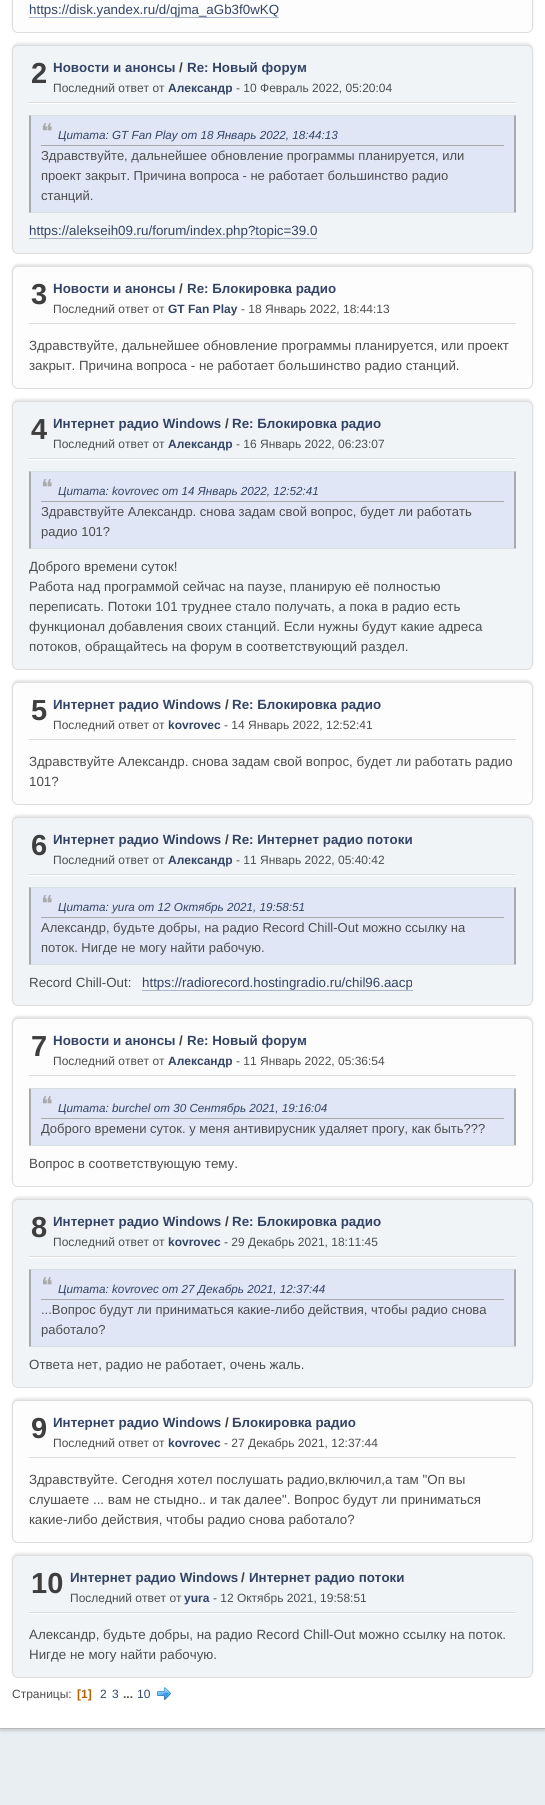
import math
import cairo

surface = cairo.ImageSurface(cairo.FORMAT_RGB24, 545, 1805)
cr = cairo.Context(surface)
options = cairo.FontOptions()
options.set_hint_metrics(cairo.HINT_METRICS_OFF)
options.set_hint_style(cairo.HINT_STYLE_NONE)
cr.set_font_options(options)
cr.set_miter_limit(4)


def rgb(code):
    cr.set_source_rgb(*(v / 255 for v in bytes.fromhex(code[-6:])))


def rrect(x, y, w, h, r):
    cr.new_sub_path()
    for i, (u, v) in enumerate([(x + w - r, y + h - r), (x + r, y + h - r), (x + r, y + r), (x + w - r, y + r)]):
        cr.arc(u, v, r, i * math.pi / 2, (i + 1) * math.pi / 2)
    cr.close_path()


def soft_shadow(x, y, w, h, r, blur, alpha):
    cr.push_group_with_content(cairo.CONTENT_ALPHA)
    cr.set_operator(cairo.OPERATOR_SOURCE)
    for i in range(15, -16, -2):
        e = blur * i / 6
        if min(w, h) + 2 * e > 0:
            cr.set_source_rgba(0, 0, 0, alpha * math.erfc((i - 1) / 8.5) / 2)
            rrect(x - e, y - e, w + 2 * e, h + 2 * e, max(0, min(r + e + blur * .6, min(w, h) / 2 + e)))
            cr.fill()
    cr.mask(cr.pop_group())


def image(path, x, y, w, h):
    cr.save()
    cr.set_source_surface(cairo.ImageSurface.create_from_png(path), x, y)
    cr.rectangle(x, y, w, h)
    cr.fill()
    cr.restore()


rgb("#e9eef2")
cr.paint()
rgb("#000000")
soft_shadow(0, -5, 545, 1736, 0, 1.5, 0.14)
rgb("#ffffff")
cr.rectangle(0, 0, 545, 1728)
cr.fill()
rgb("#b8b8b8")
cr.rectangle(0, 1728, 545, 1)
cr.fill()
rgb("#000000")
soft_shadow(12, -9, 521, 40, 6, 1, 0.1)
rgb("#fdfdfd")
rrect(12.5, -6.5, 520, 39, 5.5)
cr.fill_preserve()
rgb("#dddddd")
cr.set_line_width(1)
cr.stroke()
rgb("#a8b6cf")
cr.rectangle(29, 17, 250, 1)
cr.fill()
rgb("#000000")
soft_shadow(12, 43, 521, 209, 6, 1, 0.1)
rgb("#f0f4f7")
rrect(12.5, 45.5, 520, 208, 5.5)
cr.fill_preserve()
rgb("#dddddd")
cr.stroke()
for x, y, w, h, color in [
    (29, 103, 487, 1, "#ffffff"),
    (29, 102, 487, 1, "#dddddd"),
    (31, 116, 483, 96, "#e0e6f6"),
]:
    rgb(color)
    cr.rectangle(x, y, w, h)
    cr.fill()
rgb("#d6dfe2")
cr.new_path()
cr.move_to(29, 115)
cr.line_to(516, 115)
cr.line_to(514, 116)
cr.line_to(31, 116)
cr.close_path()
cr.fill()
rgb("#aaaaaa")
cr.new_path()
cr.move_to(516, 115)
cr.line_to(516, 213)
cr.line_to(514, 212)
cr.line_to(514, 116)
cr.close_path()
cr.fill()
rgb("#d6dfe2")
cr.new_path()
cr.move_to(516, 213)
cr.line_to(29, 213)
cr.line_to(31, 212)
cr.line_to(514, 212)
cr.close_path()
cr.fill()
rgb("#aaaaaa")
cr.new_path()
cr.move_to(29, 213)
cr.line_to(29, 115)
cr.line_to(31, 116)
cr.line_to(31, 212)
cr.close_path()
cr.fill()
cr.rectangle(41, 145, 463, 1)
cr.fill()
rgb("#a8b6cf")
cr.rectangle(29, 238, 288, 1)
cr.fill()
rgb("#000000")
soft_shadow(12, 264, 521, 123, 6, 1, 0.1)
rgb("#fdfdfd")
rrect(12.5, 266.5, 520, 122, 5.5)
cr.fill_preserve()
rgb("#dddddd")
cr.stroke()
cr.rectangle(29, 323, 487, 1)
cr.fill()
rgb("#000000")
soft_shadow(12, 399, 521, 269, 6, 1, 0.1)
rgb("#f0f4f7")
rrect(12.5, 401.5, 520, 268, 5.5)
cr.fill_preserve()
rgb("#dddddd")
cr.stroke()
for x, y, w, h, color in [
    (29, 459, 487, 1, "#ffffff"),
    (29, 458, 487, 1, "#dddddd"),
    (31, 472, 483, 76, "#e0e6f6"),
]:
    rgb(color)
    cr.rectangle(x, y, w, h)
    cr.fill()
rgb("#d6dfe2")
cr.new_path()
cr.move_to(29, 471)
cr.line_to(516, 471)
cr.line_to(514, 472)
cr.line_to(31, 472)
cr.close_path()
cr.fill()
rgb("#aaaaaa")
cr.new_path()
cr.move_to(516, 471)
cr.line_to(516, 549)
cr.line_to(514, 548)
cr.line_to(514, 472)
cr.close_path()
cr.fill()
rgb("#d6dfe2")
cr.new_path()
cr.move_to(516, 549)
cr.line_to(29, 549)
cr.line_to(31, 548)
cr.line_to(514, 548)
cr.close_path()
cr.fill()
rgb("#aaaaaa")
cr.new_path()
cr.move_to(29, 549)
cr.line_to(29, 471)
cr.line_to(31, 472)
cr.line_to(31, 548)
cr.close_path()
cr.fill()
cr.rectangle(41, 501, 463, 1)
cr.fill()
rgb("#000000")
soft_shadow(12, 680, 521, 123, 6, 1, 0.1)
rgb("#fdfdfd")
rrect(12.5, 682.5, 520, 122, 5.5)
cr.fill_preserve()
rgb("#dddddd")
cr.stroke()
cr.rectangle(29, 739, 487, 1)
cr.fill()
rgb("#000000")
soft_shadow(12, 815, 521, 189, 6, 1, 0.1)
rgb("#f0f4f7")
rrect(12.5, 817.5, 520, 188, 5.5)
cr.fill_preserve()
rgb("#dddddd")
cr.stroke()
for x, y, w, h, color in [
    (29, 875, 487, 1, "#ffffff"),
    (29, 874, 487, 1, "#dddddd"),
    (31, 888, 483, 76, "#e0e6f6"),
]:
    rgb(color)
    cr.rectangle(x, y, w, h)
    cr.fill()
rgb("#d6dfe2")
cr.new_path()
cr.move_to(29, 887)
cr.line_to(516, 887)
cr.line_to(514, 888)
cr.line_to(31, 888)
cr.close_path()
cr.fill()
rgb("#aaaaaa")
cr.new_path()
cr.move_to(516, 887)
cr.line_to(516, 965)
cr.line_to(514, 964)
cr.line_to(514, 888)
cr.close_path()
cr.fill()
rgb("#d6dfe2")
cr.new_path()
cr.move_to(516, 965)
cr.line_to(29, 965)
cr.line_to(31, 964)
cr.line_to(514, 964)
cr.close_path()
cr.fill()
rgb("#aaaaaa")
cr.new_path()
cr.move_to(29, 965)
cr.line_to(29, 887)
cr.line_to(31, 888)
cr.line_to(31, 964)
cr.close_path()
cr.fill()
cr.rectangle(41, 917, 463, 1)
cr.fill()
rgb("#a8b6cf")
cr.rectangle(142, 990, 271, 1)
cr.fill()
rgb("#000000")
soft_shadow(12, 1016, 521, 169, 6, 1, 0.1)
rgb("#fdfdfd")
rrect(12.5, 1018.5, 520, 168, 5.5)
cr.fill_preserve()
rgb("#dddddd")
cr.stroke()
cr.rectangle(29, 1075, 487, 1)
cr.fill()
rgb("#e0e6f6")
cr.rectangle(31, 1089, 483, 56)
cr.fill()
rgb("#d6dfe2")
cr.new_path()
cr.move_to(29, 1088)
cr.line_to(516, 1088)
cr.line_to(514, 1089)
cr.line_to(31, 1089)
cr.close_path()
cr.fill()
rgb("#aaaaaa")
cr.new_path()
cr.move_to(516, 1088)
cr.line_to(516, 1146)
cr.line_to(514, 1145)
cr.line_to(514, 1089)
cr.close_path()
cr.fill()
rgb("#d6dfe2")
cr.new_path()
cr.move_to(516, 1146)
cr.line_to(29, 1146)
cr.line_to(31, 1145)
cr.line_to(514, 1145)
cr.close_path()
cr.fill()
rgb("#aaaaaa")
cr.new_path()
cr.move_to(29, 1146)
cr.line_to(29, 1088)
cr.line_to(31, 1089)
cr.line_to(31, 1145)
cr.close_path()
cr.fill()
cr.rectangle(41, 1118, 463, 1)
cr.fill()
rgb("#000000")
soft_shadow(12, 1197, 521, 189, 6, 1, 0.1)
rgb("#f0f4f7")
rrect(12.5, 1199.5, 520, 188, 5.5)
cr.fill_preserve()
rgb("#dddddd")
cr.stroke()
for x, y, w, h, color in [
    (29, 1257, 487, 1, "#ffffff"),
    (29, 1256, 487, 1, "#dddddd"),
    (31, 1270, 483, 76, "#e0e6f6"),
]:
    rgb(color)
    cr.rectangle(x, y, w, h)
    cr.fill()
rgb("#d6dfe2")
cr.new_path()
cr.move_to(29, 1269)
cr.line_to(516, 1269)
cr.line_to(514, 1270)
cr.line_to(31, 1270)
cr.close_path()
cr.fill()
rgb("#aaaaaa")
cr.new_path()
cr.move_to(516, 1269)
cr.line_to(516, 1347)
cr.line_to(514, 1346)
cr.line_to(514, 1270)
cr.close_path()
cr.fill()
rgb("#d6dfe2")
cr.new_path()
cr.move_to(516, 1347)
cr.line_to(29, 1347)
cr.line_to(31, 1346)
cr.line_to(514, 1346)
cr.close_path()
cr.fill()
rgb("#aaaaaa")
cr.new_path()
cr.move_to(29, 1347)
cr.line_to(29, 1269)
cr.line_to(31, 1270)
cr.line_to(31, 1346)
cr.close_path()
cr.fill()
cr.rectangle(41, 1299, 463, 1)
cr.fill()
rgb("#000000")
soft_shadow(12, 1398, 521, 143, 6, 1, 0.1)
rgb("#fdfdfd")
rrect(12.5, 1400.5, 520, 142, 5.5)
cr.fill_preserve()
rgb("#dddddd")
cr.stroke()
cr.rectangle(29, 1457, 487, 1)
cr.fill()
rgb("#000000")
soft_shadow(12, 1553, 521, 123, 6, 1, 0.1)
rgb("#f0f4f7")
rrect(12.5, 1555.5, 520, 122, 5.5)
cr.fill_preserve()
rgb("#dddddd")
cr.stroke()
rgb("#ffffff")
cr.rectangle(29, 1613, 487, 1)
cr.fill()
rgb("#dddddd")
cr.rectangle(29, 1612, 487, 1)
cr.fill()
image("img/1.png", 157, 1687, 14, 13)
cr.select_font_face("Liberation Sans")
cr.set_font_size(13.35)
rgb("#334466")
cr.move_to(29, 14)
cr.show_text("https://disk.yandex.ru/d/qjma_aGb3f0wKQ")
cr.select_font_face("Liberation Sans", cairo.FONT_SLANT_NORMAL, cairo.FONT_WEIGHT_BOLD)
cr.set_font_size(29)
rgb("#3f3f3f")
cr.move_to(31, 83)
cr.show_text("2")
cr.set_font_size(13.35)
rgb("#334466")
cr.move_to(53, 72)
cr.show_text("Новости и анонсы")
rgb("#3f3f3f")
cr.move_to(179, 72)
cr.show_text("/")
rgb("#334466")
cr.move_to(187, 72)
cr.show_text("Re: Новый форум")
cr.select_font_face("Liberation Sans")
cr.set_font_size(12)
rgb("#4d4d4d")
cr.move_to(53, 92)
cr.show_text("Последний ответ от")
cr.select_font_face("Liberation Sans", cairo.FONT_SLANT_NORMAL, cairo.FONT_WEIGHT_BOLD)
rgb("#334466")
cr.move_to(168, 92)
cr.show_text("Александр")
cr.select_font_face("Liberation Sans")
rgb("#4d4d4d")
cr.move_to(236, 92)
cr.show_text("- 10 Февраль 2022, 05:20:04")
cr.select_font_face("DejaVu Sans")
cr.set_font_size(22)
rgb("#aaaaaa")
cr.move_to(41, 139)
cr.show_text("❝")
cr.select_font_face("Liberation Sans", cairo.FONT_SLANT_ITALIC)
cr.set_font_size(11.7)
rgb("#334466")
cr.move_to(58, 139)
cr.show_text("Цитата: GT Fan Play от 18 Январь 2022, 18:44:13")
cr.select_font_face("Liberation Sans")
cr.set_font_size(13)
rgb("#4d4d4d")
for x, y, s in [
    (41, 160, "Здравствуйте, дальнейшее обновление программы планируется, или"),
    (41, 180, "проект закрыт. Причина вопроса - не работает большинство радио"),
    (41, 200, "станций."),
]:
    cr.move_to(x, y)
    cr.show_text(s)
cr.set_font_size(13.35)
rgb("#334466")
cr.move_to(29, 235)
cr.show_text("https://alekseih09.ru/forum/index.php?topic=39.0")
cr.select_font_face("Liberation Sans", cairo.FONT_SLANT_NORMAL, cairo.FONT_WEIGHT_BOLD)
cr.set_font_size(29)
rgb("#3f3f3f")
cr.move_to(31, 304)
cr.show_text("3")
cr.set_font_size(13.35)
rgb("#334466")
cr.move_to(53, 293)
cr.show_text("Новости и анонсы")
rgb("#3f3f3f")
cr.move_to(179, 293)
cr.show_text("/")
rgb("#334466")
cr.move_to(187, 293)
cr.show_text("Re: Блокировка радио")
cr.select_font_face("Liberation Sans")
cr.set_font_size(12)
rgb("#4d4d4d")
cr.move_to(53, 313)
cr.show_text("Последний ответ от")
cr.select_font_face("Liberation Sans", cairo.FONT_SLANT_NORMAL, cairo.FONT_WEIGHT_BOLD)
rgb("#334466")
cr.move_to(168, 313)
cr.show_text("GT Fan Play")
cr.select_font_face("Liberation Sans")
rgb("#4d4d4d")
cr.move_to(241, 313)
cr.show_text("- 18 Январь 2022, 18:44:13")
cr.set_font_size(13.35)
cr.move_to(29, 350)
cr.show_text("Здравствуйте, дальнейшее обновление программы планируется, или проект")
cr.move_to(29, 370)
cr.show_text("закрыт. Причина вопроса - не работает большинство радио станций.")
cr.select_font_face("Liberation Sans", cairo.FONT_SLANT_NORMAL, cairo.FONT_WEIGHT_BOLD)
cr.set_font_size(29)
rgb("#3f3f3f")
cr.move_to(31, 439)
cr.show_text("4")
cr.set_font_size(13.35)
rgb("#334466")
cr.move_to(53, 428)
cr.show_text("Интернет радио Windows")
rgb("#3f3f3f")
cr.move_to(225, 428)
cr.show_text("/")
rgb("#334466")
cr.move_to(232, 428)
cr.show_text("Re: Блокировка радио")
cr.select_font_face("Liberation Sans")
cr.set_font_size(12)
rgb("#4d4d4d")
cr.move_to(53, 448)
cr.show_text("Последний ответ от")
cr.select_font_face("Liberation Sans", cairo.FONT_SLANT_NORMAL, cairo.FONT_WEIGHT_BOLD)
rgb("#334466")
cr.move_to(168, 448)
cr.show_text("Александр")
cr.select_font_face("Liberation Sans")
rgb("#4d4d4d")
cr.move_to(236, 448)
cr.show_text("- 16 Январь 2022, 06:23:07")
cr.select_font_face("DejaVu Sans")
cr.set_font_size(22)
rgb("#aaaaaa")
cr.move_to(41, 495)
cr.show_text("❝")
cr.select_font_face("Liberation Sans", cairo.FONT_SLANT_ITALIC)
cr.set_font_size(11.7)
rgb("#334466")
cr.move_to(58, 495)
cr.show_text("Цитата: kovrovec от 14 Январь 2022, 12:52:41")
cr.select_font_face("Liberation Sans")
cr.set_font_size(13)
rgb("#4d4d4d")
cr.move_to(41, 516)
cr.show_text("Здравствуйте Александр. снова задам свой вопрос, будет ли работать")
cr.move_to(41, 536)
cr.show_text("радио 101?")
cr.set_font_size(13.35)
for x, y, s in [
    (29, 571, "Доброго времени суток!"),
    (29, 591, "Работа над программой сейчас на паузе, планирую её полностью"),
    (29, 611, "переписать. Потоки 101 труднее стало получать, а пока в радио есть"),
    (29, 631, "функционал добавления своих станций. Если нужны будут какие адреса"),
    (29, 651, "потоков, обращайтесь на форум в соответствующий раздел."),
]:
    cr.move_to(x, y)
    cr.show_text(s)
cr.select_font_face("Liberation Sans", cairo.FONT_SLANT_NORMAL, cairo.FONT_WEIGHT_BOLD)
cr.set_font_size(29)
rgb("#3f3f3f")
cr.move_to(31, 720)
cr.show_text("5")
cr.set_font_size(13.35)
rgb("#334466")
cr.move_to(53, 709)
cr.show_text("Интернет радио Windows")
rgb("#3f3f3f")
cr.move_to(225, 709)
cr.show_text("/")
rgb("#334466")
cr.move_to(232, 709)
cr.show_text("Re: Блокировка радио")
cr.select_font_face("Liberation Sans")
cr.set_font_size(12)
rgb("#4d4d4d")
cr.move_to(53, 729)
cr.show_text("Последний ответ от")
cr.select_font_face("Liberation Sans", cairo.FONT_SLANT_NORMAL, cairo.FONT_WEIGHT_BOLD)
rgb("#334466")
cr.move_to(168, 729)
cr.show_text("kovrovec")
cr.select_font_face("Liberation Sans")
rgb("#4d4d4d")
cr.move_to(224, 729)
cr.show_text("- 14 Январь 2022, 12:52:41")
cr.set_font_size(13.35)
cr.move_to(29, 766)
cr.show_text("Здравствуйте Александр. снова задам свой вопрос, будет ли работать радио")
cr.move_to(29, 786)
cr.show_text("101?")
cr.select_font_face("Liberation Sans", cairo.FONT_SLANT_NORMAL, cairo.FONT_WEIGHT_BOLD)
cr.set_font_size(29)
rgb("#3f3f3f")
cr.move_to(31, 855)
cr.show_text("6")
cr.set_font_size(13.35)
rgb("#334466")
cr.move_to(53, 844)
cr.show_text("Интернет радио Windows")
rgb("#3f3f3f")
cr.move_to(225, 844)
cr.show_text("/")
rgb("#334466")
cr.move_to(232, 844)
cr.show_text("Re: Интернет радио потоки")
cr.select_font_face("Liberation Sans")
cr.set_font_size(12)
rgb("#4d4d4d")
cr.move_to(53, 864)
cr.show_text("Последний ответ от")
cr.select_font_face("Liberation Sans", cairo.FONT_SLANT_NORMAL, cairo.FONT_WEIGHT_BOLD)
rgb("#334466")
cr.move_to(168, 864)
cr.show_text("Александр")
cr.select_font_face("Liberation Sans")
rgb("#4d4d4d")
cr.move_to(236, 864)
cr.show_text("- 11 Январь 2022, 05:40:42")
cr.select_font_face("DejaVu Sans")
cr.set_font_size(22)
rgb("#aaaaaa")
cr.move_to(41, 911)
cr.show_text("❝")
cr.select_font_face("Liberation Sans", cairo.FONT_SLANT_ITALIC)
cr.set_font_size(11.7)
rgb("#334466")
cr.move_to(58, 911)
cr.show_text("Цитата: yura от 12 Октябрь 2021, 19:58:51")
cr.select_font_face("Liberation Sans")
cr.set_font_size(13)
rgb("#4d4d4d")
cr.move_to(41, 932)
cr.show_text("Александр, будьте добры, на радио Record Chill-Out можно ссылку на")
cr.move_to(41, 952)
cr.show_text("поток. Нигде не могу найти рабочую.")
cr.set_font_size(13.35)
cr.move_to(29, 987)
cr.show_text("Record Chill-Out:")
rgb("#334466")
cr.move_to(142, 987)
cr.show_text("https://radiorecord.hostingradio.ru/chil96.aacp")
cr.select_font_face("Liberation Sans", cairo.FONT_SLANT_NORMAL, cairo.FONT_WEIGHT_BOLD)
cr.set_font_size(29)
rgb("#3f3f3f")
cr.move_to(31, 1056)
cr.show_text("7")
cr.set_font_size(13.35)
rgb("#334466")
cr.move_to(53, 1045)
cr.show_text("Новости и анонсы")
rgb("#3f3f3f")
cr.move_to(179, 1045)
cr.show_text("/")
rgb("#334466")
cr.move_to(187, 1045)
cr.show_text("Re: Новый форум")
cr.select_font_face("Liberation Sans")
cr.set_font_size(12)
rgb("#4d4d4d")
cr.move_to(53, 1065)
cr.show_text("Последний ответ от")
cr.select_font_face("Liberation Sans", cairo.FONT_SLANT_NORMAL, cairo.FONT_WEIGHT_BOLD)
rgb("#334466")
cr.move_to(168, 1065)
cr.show_text("Александр")
cr.select_font_face("Liberation Sans")
rgb("#4d4d4d")
cr.move_to(236, 1065)
cr.show_text("- 11 Январь 2022, 05:36:54")
cr.select_font_face("DejaVu Sans")
cr.set_font_size(22)
rgb("#aaaaaa")
cr.move_to(41, 1112)
cr.show_text("❝")
cr.select_font_face("Liberation Sans", cairo.FONT_SLANT_ITALIC)
cr.set_font_size(11.7)
rgb("#334466")
cr.move_to(58, 1112)
cr.show_text("Цитата: burchel от 30 Сентябрь 2021, 19:16:04")
cr.select_font_face("Liberation Sans")
cr.set_font_size(13)
rgb("#4d4d4d")
cr.move_to(41, 1133)
cr.show_text("Доброго времени суток. у меня антивирусник удаляет прогу, как быть???")
cr.set_font_size(13.35)
cr.move_to(29, 1168)
cr.show_text("Вопрос в соответствующую тему.")
cr.select_font_face("Liberation Sans", cairo.FONT_SLANT_NORMAL, cairo.FONT_WEIGHT_BOLD)
cr.set_font_size(29)
rgb("#3f3f3f")
cr.move_to(31, 1237)
cr.show_text("8")
cr.set_font_size(13.35)
rgb("#334466")
cr.move_to(53, 1226)
cr.show_text("Интернет радио Windows")
rgb("#3f3f3f")
cr.move_to(225, 1226)
cr.show_text("/")
rgb("#334466")
cr.move_to(232, 1226)
cr.show_text("Re: Блокировка радио")
cr.select_font_face("Liberation Sans")
cr.set_font_size(12)
rgb("#4d4d4d")
cr.move_to(53, 1246)
cr.show_text("Последний ответ от")
cr.select_font_face("Liberation Sans", cairo.FONT_SLANT_NORMAL, cairo.FONT_WEIGHT_BOLD)
rgb("#334466")
cr.move_to(168, 1246)
cr.show_text("kovrovec")
cr.select_font_face("Liberation Sans")
rgb("#4d4d4d")
cr.move_to(224, 1246)
cr.show_text("- 29 Декабрь 2021, 18:11:45")
cr.select_font_face("DejaVu Sans")
cr.set_font_size(22)
rgb("#aaaaaa")
cr.move_to(41, 1293)
cr.show_text("❝")
cr.select_font_face("Liberation Sans", cairo.FONT_SLANT_ITALIC)
cr.set_font_size(11.7)
rgb("#334466")
cr.move_to(58, 1293)
cr.show_text("Цитата: kovrovec от 27 Декабрь 2021, 12:37:44")
cr.select_font_face("Liberation Sans")
cr.set_font_size(13)
rgb("#4d4d4d")
cr.move_to(41, 1314)
cr.show_text("...Вопрос будут ли приниматься какие-либо действия, чтобы радио снова")
cr.move_to(41, 1334)
cr.show_text("работало?")
cr.set_font_size(13.35)
cr.move_to(29, 1369)
cr.show_text("Ответа нет, радио не работает, очень жаль.")
cr.select_font_face("Liberation Sans", cairo.FONT_SLANT_NORMAL, cairo.FONT_WEIGHT_BOLD)
cr.set_font_size(29)
rgb("#3f3f3f")
cr.move_to(31, 1438)
cr.show_text("9")
cr.set_font_size(13.35)
rgb("#334466")
cr.move_to(53, 1427)
cr.show_text("Интернет радио Windows")
rgb("#3f3f3f")
cr.move_to(225, 1427)
cr.show_text("/")
rgb("#334466")
cr.move_to(232, 1427)
cr.show_text("Блокировка радио")
cr.select_font_face("Liberation Sans")
cr.set_font_size(12)
rgb("#4d4d4d")
cr.move_to(53, 1447)
cr.show_text("Последний ответ от")
cr.select_font_face("Liberation Sans", cairo.FONT_SLANT_NORMAL, cairo.FONT_WEIGHT_BOLD)
rgb("#334466")
cr.move_to(168, 1447)
cr.show_text("kovrovec")
cr.select_font_face("Liberation Sans")
rgb("#4d4d4d")
cr.move_to(224, 1447)
cr.show_text("- 27 Декабрь 2021, 12:37:44")
cr.set_font_size(13.35)
for x, y, s in [
    (29, 1484, "Здравствуйте. Сегодня хотел послушать радио,включил,а там \"Оп вы"),
    (29, 1504, "слушаете ... вам не стыдно.. и так далее\". Вопрос будут ли приниматься"),
    (29, 1524, "какие-либо действия, чтобы радио снова работало?"),
]:
    cr.move_to(x, y)
    cr.show_text(s)
cr.select_font_face("Liberation Sans", cairo.FONT_SLANT_NORMAL, cairo.FONT_WEIGHT_BOLD)
cr.set_font_size(29)
rgb("#3f3f3f")
cr.move_to(31, 1593)
cr.show_text("10")
cr.set_font_size(13.35)
rgb("#334466")
cr.move_to(70, 1582)
cr.show_text("Интернет радио Windows")
rgb("#3f3f3f")
cr.move_to(241, 1582)
cr.show_text("/")
rgb("#334466")
cr.move_to(249, 1582)
cr.show_text("Интернет радио потоки")
cr.select_font_face("Liberation Sans")
cr.set_font_size(12)
rgb("#4d4d4d")
cr.move_to(70, 1602)
cr.show_text("Последний ответ от")
cr.select_font_face("Liberation Sans", cairo.FONT_SLANT_NORMAL, cairo.FONT_WEIGHT_BOLD)
rgb("#334466")
cr.move_to(184, 1602)
cr.show_text("yura")
cr.select_font_face("Liberation Sans")
rgb("#4d4d4d")
cr.move_to(213, 1602)
cr.show_text("- 12 Октябрь 2021, 19:58:51")
cr.set_font_size(13.35)
cr.move_to(29, 1639)
cr.show_text("Александр, будьте добры, на радио Record Chill-Out можно ссылку на поток.")
cr.move_to(29, 1659)
cr.show_text("Нигде не могу найти рабочую.")
cr.set_font_size(12)
cr.move_to(12, 1698)
cr.show_text("Страницы:")
cr.select_font_face("Liberation Sans", cairo.FONT_SLANT_NORMAL, cairo.FONT_WEIGHT_BOLD)
rgb("#b46100")
cr.move_to(77, 1698)
cr.show_text("[1]")
cr.select_font_face("Liberation Sans")
rgb("#334466")
cr.move_to(100, 1698)
cr.show_text("2")
cr.move_to(112, 1698)
cr.show_text("3")
cr.select_font_face("Liberation Sans", cairo.FONT_SLANT_NORMAL, cairo.FONT_WEIGHT_BOLD)
rgb("#4d4d4d")
cr.move_to(123, 1698)
cr.show_text("...")
cr.select_font_face("Liberation Sans")
rgb("#334466")
cr.move_to(137, 1698)
cr.show_text("10")
surface.write_to_png("page.png")
